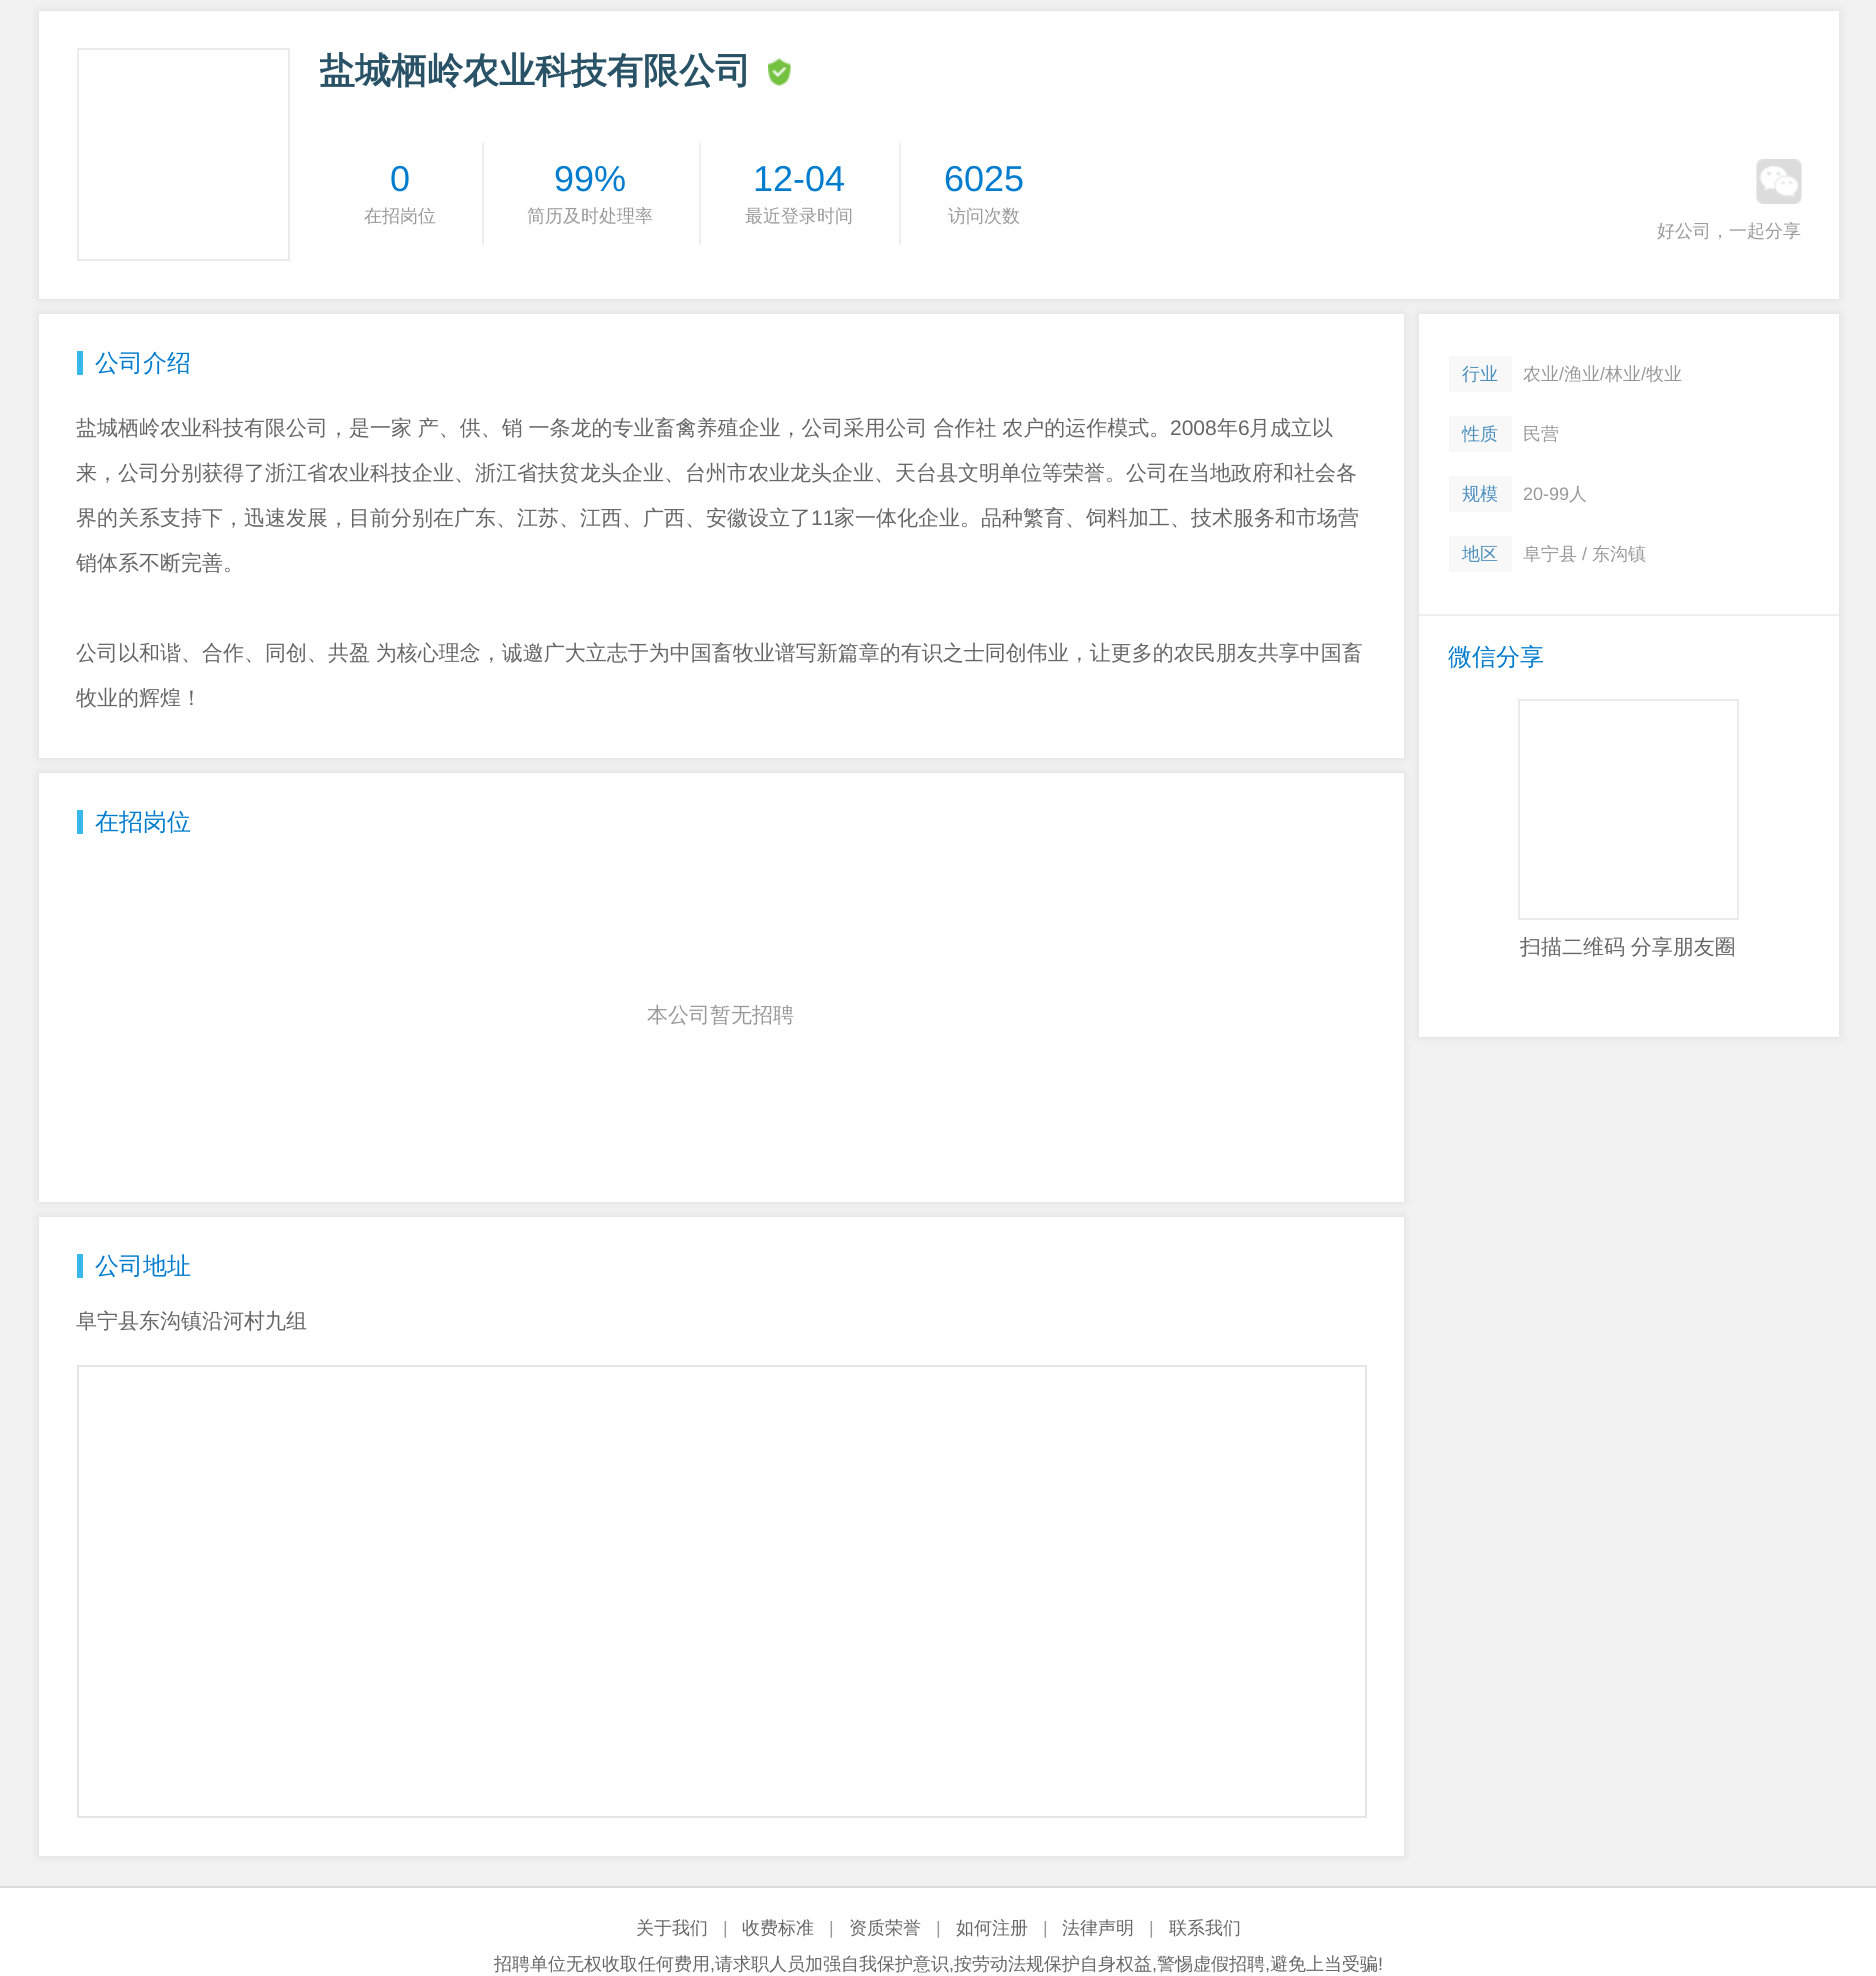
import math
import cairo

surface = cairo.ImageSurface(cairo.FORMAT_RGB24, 1876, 1976)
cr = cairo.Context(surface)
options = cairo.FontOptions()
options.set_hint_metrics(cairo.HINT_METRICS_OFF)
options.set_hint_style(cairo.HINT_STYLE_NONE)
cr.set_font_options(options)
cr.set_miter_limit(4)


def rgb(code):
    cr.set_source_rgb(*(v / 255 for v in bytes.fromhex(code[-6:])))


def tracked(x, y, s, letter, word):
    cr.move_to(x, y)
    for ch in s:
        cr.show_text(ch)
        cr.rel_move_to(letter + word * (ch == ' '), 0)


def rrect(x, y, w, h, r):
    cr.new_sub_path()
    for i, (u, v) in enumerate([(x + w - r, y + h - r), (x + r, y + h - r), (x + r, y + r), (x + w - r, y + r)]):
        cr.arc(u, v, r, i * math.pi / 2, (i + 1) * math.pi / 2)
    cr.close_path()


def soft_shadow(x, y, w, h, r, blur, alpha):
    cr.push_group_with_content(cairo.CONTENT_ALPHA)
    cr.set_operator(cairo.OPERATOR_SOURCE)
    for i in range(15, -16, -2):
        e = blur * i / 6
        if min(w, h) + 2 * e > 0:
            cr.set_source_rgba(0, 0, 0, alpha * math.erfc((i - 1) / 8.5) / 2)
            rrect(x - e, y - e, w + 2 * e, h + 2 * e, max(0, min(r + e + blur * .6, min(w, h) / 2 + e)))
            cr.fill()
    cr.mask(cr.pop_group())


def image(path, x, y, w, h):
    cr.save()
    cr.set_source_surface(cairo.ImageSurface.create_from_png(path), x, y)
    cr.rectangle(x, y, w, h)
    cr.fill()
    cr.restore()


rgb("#f2f2f2")
cr.paint()
rgb("#dbdbdb")
soft_shadow(39, 11, 1800, 288, 0, 4.5, 1)
rgb("#ffffff")
cr.rectangle(39, 11, 1800, 288)
cr.fill()
cr.rectangle(78, 49, 211, 211)
rgb("#ebebeb")
cr.stroke()
image("img/1.png", 768, 58, 23, 28)
for x, y, w, h, color in [
    (482, 143, 2, 102, "#eeeeee"),
    (699, 143, 2, 102, "#eeeeee"),
    (899, 143, 2, 102, "#eeeeee"),
]:
    rgb(color)
    cr.rectangle(x, y, w, h)
    cr.fill()
image("img/2.png", 1756, 159, 46, 45)
rgb("#dbdbdb")
soft_shadow(39, 314, 1365, 444, 0, 4.5, 1)
rgb("#ffffff")
cr.rectangle(39, 314, 1365, 444)
cr.fill()
rgb("#38b7ea")
cr.rectangle(77, 351, 6, 24)
cr.fill()
rgb("#dbdbdb")
soft_shadow(39, 773, 1365, 429, 0, 4.5, 1)
rgb("#ffffff")
cr.rectangle(39, 773, 1365, 429)
cr.fill()
rgb("#38b7ea")
cr.rectangle(77, 810, 6, 24)
cr.fill()
rgb("#dbdbdb")
soft_shadow(39, 1217, 1365, 639, 0, 4.5, 1)
rgb("#ffffff")
cr.rectangle(39, 1217, 1365, 639)
cr.fill()
rgb("#38b7ea")
cr.rectangle(77, 1254, 6, 24)
cr.fill()
cr.rectangle(78, 1366, 1288, 451)
rgb("#e6e6e6")
cr.stroke()
rgb("#dbdbdb")
soft_shadow(1419, 314, 420, 723, 0, 4.5, 1)
for x, y, w, h, color in [
    (1419, 314, 420, 723, "#ffffff"),
    (1449, 356, 63, 36, "#f8f8f8"),
    (1449, 416, 63, 36, "#f8f8f8"),
    (1449, 476, 63, 36, "#f8f8f8"),
    (1449, 536, 63, 36, "#f8f8f8"),
    (1419, 614, 420, 2, "#eeeeee"),
]:
    rgb(color)
    cr.rectangle(x, y, w, h)
    cr.fill()
cr.rectangle(1519, 700, 219, 219)
rgb("#ebebeb")
cr.stroke()
rgb("#ffffff")
cr.rectangle(0, 1888, 1876, 88)
cr.fill()
rgb("#dadada")
cr.rectangle(0, 1886, 1876, 2)
cr.fill()
cr.save()
cr.rectangle(320, 48, 432, 45)
cr.clip()
cr.select_font_face("WenQuanYi Zen Hei", cairo.FONT_SLANT_NORMAL, cairo.FONT_WEIGHT_BOLD)
cr.set_font_size(36)
rgb("#295266")
cr.move_to(319, 83)
cr.show_text("盐城栖岭农业科技有限公司")
cr.restore()
cr.select_font_face("Liberation Sans")
cr.set_font_size(36)
rgb("#007ccf")
cr.move_to(390, 191)
cr.show_text("0")
cr.select_font_face("WenQuanYi Zen Hei Medium")
cr.set_font_size(18)
rgb("#999999")
cr.move_to(364, 222)
cr.show_text("在招岗位")
cr.select_font_face("Liberation Sans")
cr.set_font_size(36)
rgb("#007ccf")
cr.move_to(554, 191)
cr.show_text("99%")
cr.select_font_face("WenQuanYi Zen Hei Medium")
cr.set_font_size(18)
rgb("#999999")
cr.move_to(527, 222)
cr.show_text("简历及时处理率")
cr.select_font_face("Liberation Sans")
cr.set_font_size(36)
rgb("#007ccf")
cr.move_to(753, 191)
cr.show_text("12-04")
cr.select_font_face("WenQuanYi Zen Hei Medium")
cr.set_font_size(18)
rgb("#999999")
cr.move_to(745, 222)
cr.show_text("最近登录时间")
cr.select_font_face("Liberation Sans")
cr.set_font_size(36)
rgb("#007ccf")
cr.move_to(944, 191)
cr.show_text("6025")
cr.select_font_face("WenQuanYi Zen Hei Medium")
cr.set_font_size(18)
rgb("#999999")
cr.move_to(948, 222)
cr.show_text("访问次数")
cr.move_to(1657, 237)
cr.show_text("好公司，一起分享")
cr.set_font_size(24)
rgb("#007ccf")
cr.move_to(95, 371)
cr.show_text("公司介绍")
cr.set_font_size(21)
rgb("#666666")
tracked(76, 435, "盐城栖岭农业科技有限公司，是一家 产、供、销 一条龙的专业畜禽养殖企业，公司采用公司 合作社 农户的运作模式。", 0, -0.5)
cr.select_font_face("Liberation Sans")
cr.move_to(1170, 435)
cr.show_text("2008")
cr.select_font_face("WenQuanYi Zen Hei Medium")
cr.move_to(1217, 435)
cr.show_text("年")
cr.select_font_face("Liberation Sans")
cr.move_to(1238, 435)
cr.show_text("6")
cr.select_font_face("WenQuanYi Zen Hei Medium")
for x, y, s in [
    (1249, 435, "月成立以"),
    (76, 480, "来，公司分别获得了浙江省农业科技企业、浙江省扶贫龙头企业、台州市农业龙头企业、天台县文明单位等荣誉。公司在当地政府和社会各"),
    (76, 525, "界的关系支持下，迅速发展，目前分别在广东、江苏、江西、广西、安徽设立了"),
]:
    cr.move_to(x, y)
    cr.show_text(s)
cr.select_font_face("Liberation Sans")
cr.move_to(811, 525)
cr.show_text("11")
cr.select_font_face("WenQuanYi Zen Hei Medium")
cr.move_to(834, 525)
cr.show_text("家一体化企业。品种繁育、饲料加工、技术服务和市场营")
cr.move_to(76, 570)
cr.show_text("销体系不断完善。")
tracked(76, 660, "公司以和谐、合作、同创、共盈 为核心理念，诚邀广大立志于为中国畜牧业谱写新篇章的有识之士同创伟业，让更多的农民朋友共享中国畜", 0, -0.5)
cr.move_to(76, 705)
cr.show_text("牧业的辉煌！")
cr.set_font_size(24)
rgb("#007ccf")
cr.move_to(95, 830)
cr.show_text("在招岗位")
cr.set_font_size(21)
rgb("#999999")
cr.move_to(647, 1022)
cr.show_text("本公司暂无招聘")
cr.set_font_size(24)
rgb("#007ccf")
cr.move_to(95, 1274)
cr.show_text("公司地址")
cr.set_font_size(21)
rgb("#666666")
cr.move_to(76, 1328)
cr.show_text("阜宁县东沟镇沿河村九组")
cr.set_font_size(18)
rgb("#4b8fbf")
cr.move_to(1462, 380)
cr.show_text("行业")
rgb("#999999")
cr.move_to(1523, 380)
cr.show_text("农业")
cr.select_font_face("Liberation Sans")
cr.move_to(1559, 380)
cr.show_text("/")
cr.select_font_face("WenQuanYi Zen Hei Medium")
cr.move_to(1564, 380)
cr.show_text("渔业")
cr.select_font_face("Liberation Sans")
cr.move_to(1600, 380)
cr.show_text("/")
cr.select_font_face("WenQuanYi Zen Hei Medium")
cr.move_to(1605, 380)
cr.show_text("林业")
cr.select_font_face("Liberation Sans")
cr.move_to(1641, 380)
cr.show_text("/")
cr.select_font_face("WenQuanYi Zen Hei Medium")
cr.move_to(1646, 380)
cr.show_text("牧业")
rgb("#4b8fbf")
cr.move_to(1462, 440)
cr.show_text("性质")
rgb("#999999")
cr.move_to(1523, 440)
cr.show_text("民营")
rgb("#4b8fbf")
cr.move_to(1462, 500)
cr.show_text("规模")
cr.select_font_face("Liberation Sans")
rgb("#999999")
cr.move_to(1523, 500)
cr.show_text("20-99")
cr.select_font_face("WenQuanYi Zen Hei Medium")
cr.move_to(1569, 500)
cr.show_text("人")
rgb("#4b8fbf")
cr.move_to(1462, 560)
cr.show_text("地区")
rgb("#999999")
cr.move_to(1523, 560)
cr.show_text("阜宁县")
cr.select_font_face("Liberation Sans")
cr.move_to(1582, 560)
cr.show_text("/")
cr.select_font_face("WenQuanYi Zen Hei Medium")
cr.move_to(1592, 560)
cr.show_text("东沟镇")
cr.set_font_size(24)
rgb("#007ccf")
cr.move_to(1448, 665)
cr.show_text("微信分享")
cr.set_font_size(21)
rgb("#666666")
tracked(1520, 954, "扫描二维码 分享朋友圈", 0, -0.5)
cr.set_font_size(18)
cr.move_to(636, 1934)
cr.show_text("关于我们")
cr.select_font_face("Liberation Sans")
rgb("#999999")
cr.move_to(723, 1934)
cr.show_text("|")
cr.select_font_face("WenQuanYi Zen Hei Medium")
rgb("#666666")
cr.move_to(742, 1934)
cr.show_text("收费标准")
cr.select_font_face("Liberation Sans")
rgb("#999999")
cr.move_to(829, 1934)
cr.show_text("|")
cr.select_font_face("WenQuanYi Zen Hei Medium")
rgb("#666666")
cr.move_to(849, 1934)
cr.show_text("资质荣誉")
cr.select_font_face("Liberation Sans")
rgb("#999999")
cr.move_to(936, 1934)
cr.show_text("|")
cr.select_font_face("WenQuanYi Zen Hei Medium")
rgb("#666666")
cr.move_to(956, 1934)
cr.show_text("如何注册")
cr.select_font_face("Liberation Sans")
rgb("#999999")
cr.move_to(1043, 1934)
cr.show_text("|")
cr.select_font_face("WenQuanYi Zen Hei Medium")
rgb("#666666")
cr.move_to(1062, 1934)
cr.show_text("法律声明")
cr.select_font_face("Liberation Sans")
rgb("#999999")
cr.move_to(1149, 1934)
cr.show_text("|")
cr.select_font_face("WenQuanYi Zen Hei Medium")
rgb("#666666")
for x, y, s in [
    (1169, 1934, "联系我们"),
    (494, 1970, "招聘单位无权收取任何费用"),
    (715, 1970, "请求职人员加强自我保护意识"),
    (954, 1970, "按劳动法规保护自身权益"),
    (1157, 1970, "警惕虚假招聘"),
    (1270, 1970, "避免上当受骗"),
]:
    cr.move_to(x, y)
    cr.show_text(s)
cr.select_font_face("Liberation Sans")
for x, y, s in [
    (1378, 1970, "!"),
    (710, 1970, ","),
    (949, 1970, ","),
    (1152, 1970, ","),
    (1265, 1970, ","),
]:
    cr.move_to(x, y)
    cr.show_text(s)
surface.write_to_png("page.png")
